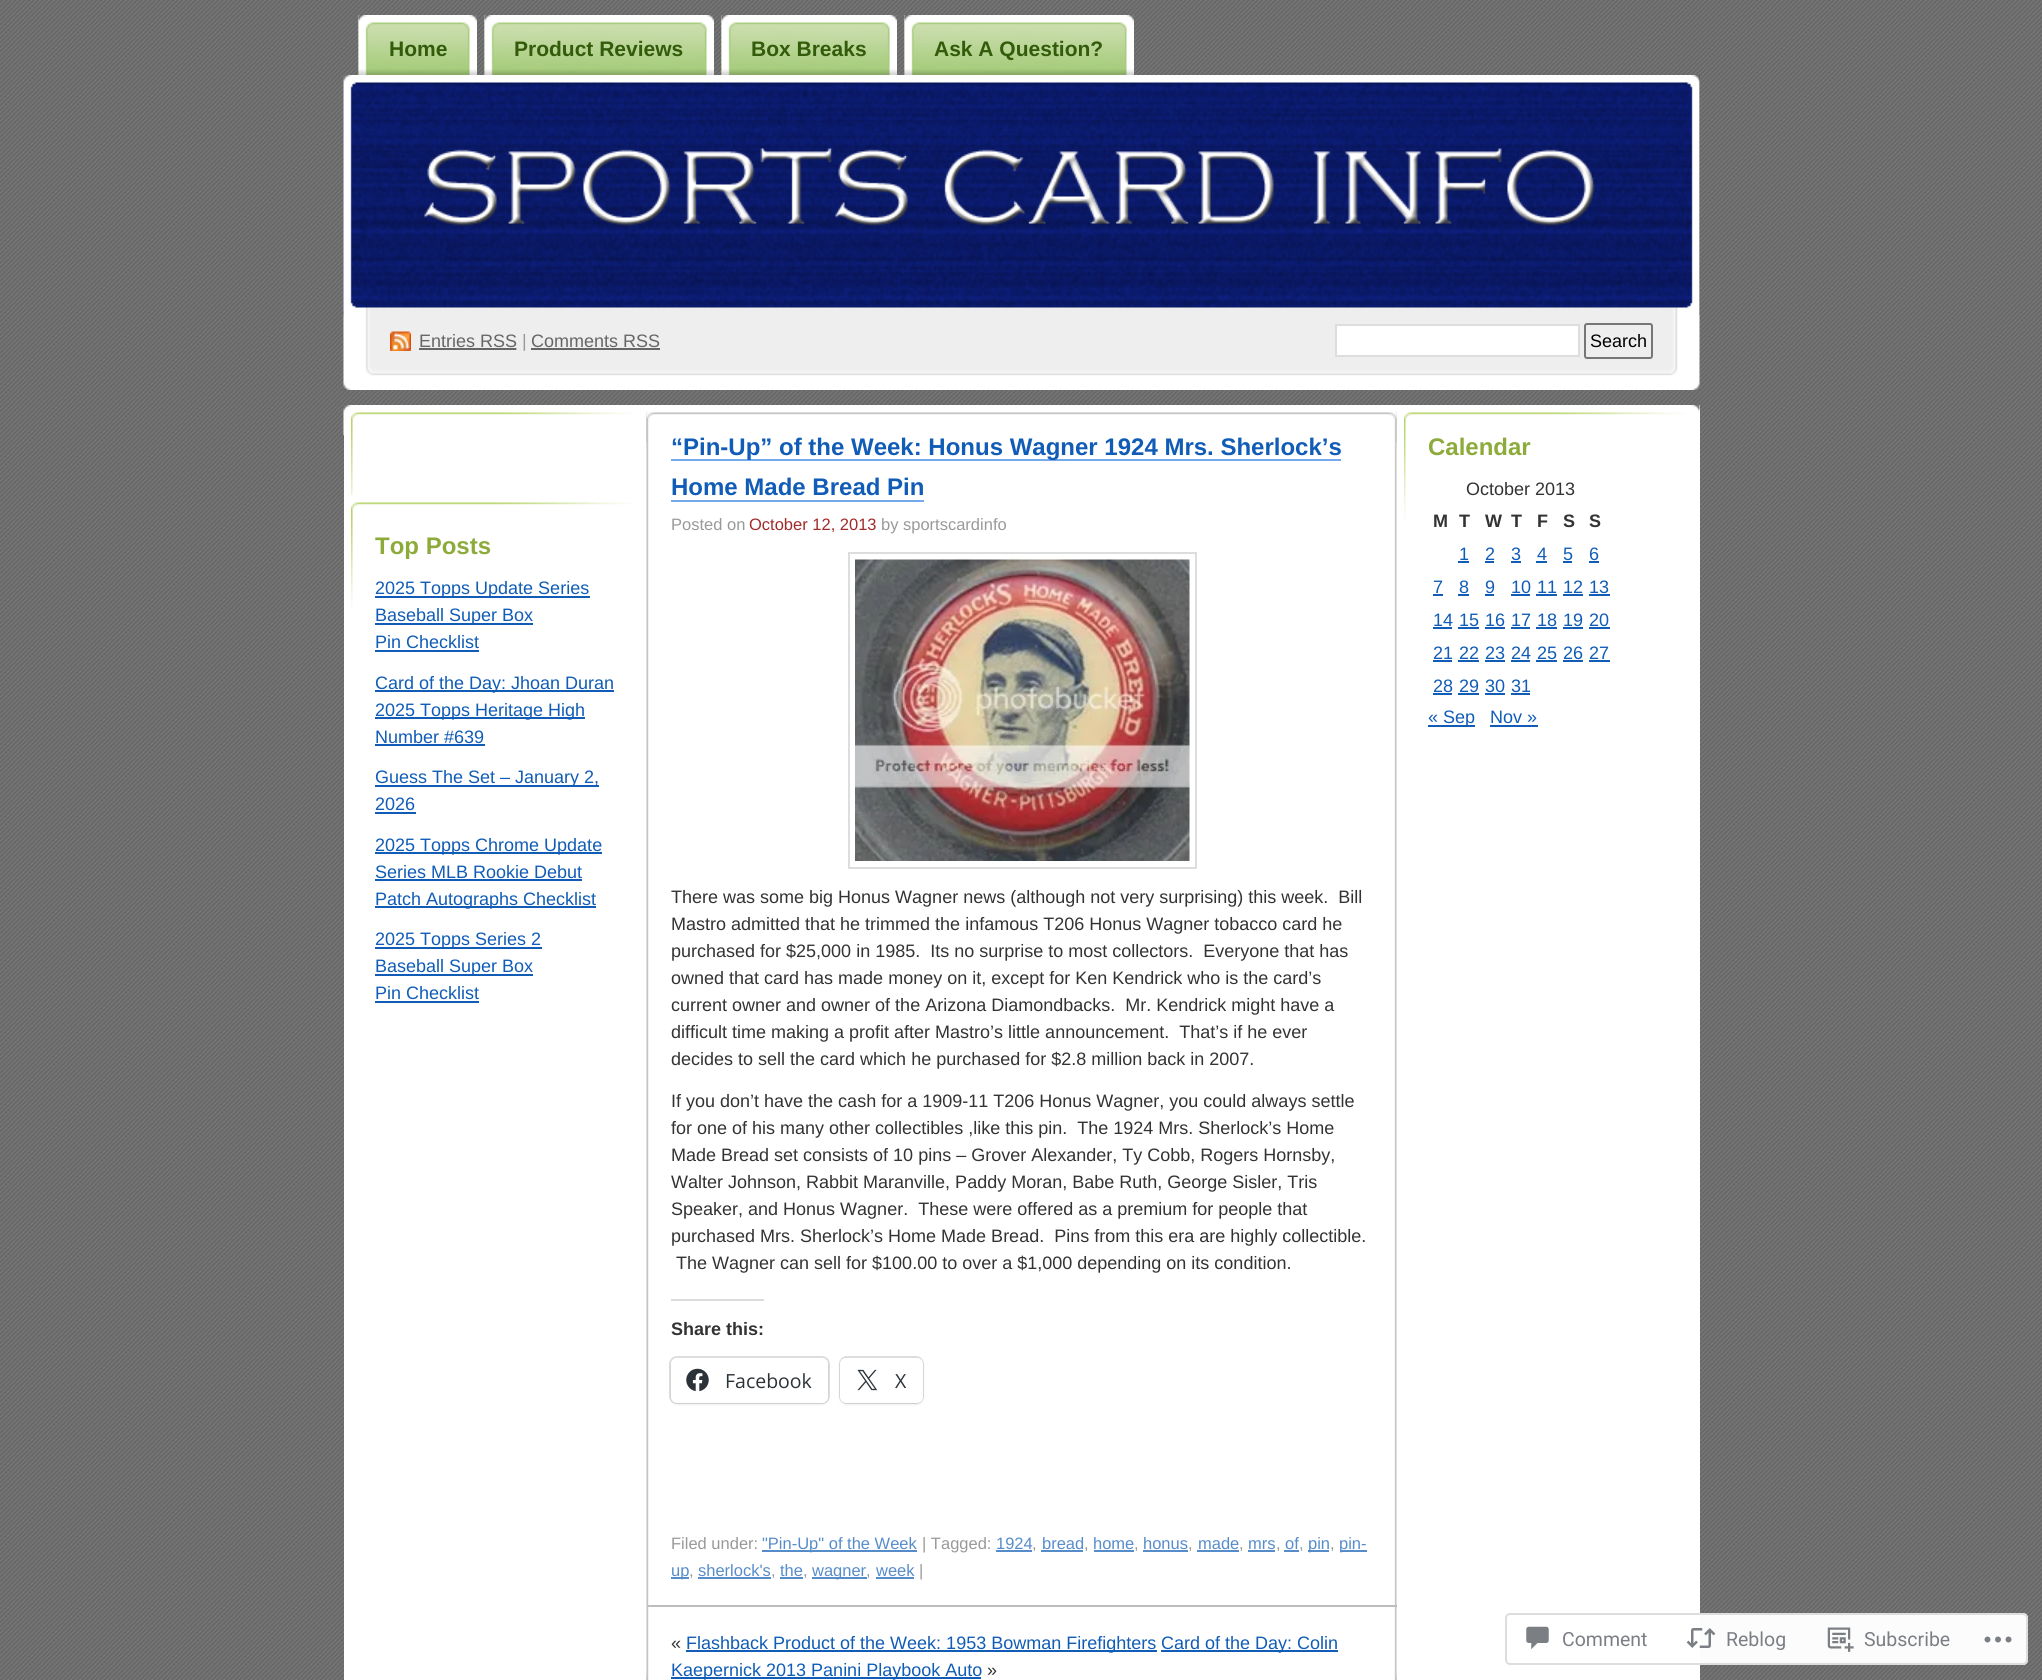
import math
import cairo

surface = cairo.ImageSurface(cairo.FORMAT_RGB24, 2042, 1680)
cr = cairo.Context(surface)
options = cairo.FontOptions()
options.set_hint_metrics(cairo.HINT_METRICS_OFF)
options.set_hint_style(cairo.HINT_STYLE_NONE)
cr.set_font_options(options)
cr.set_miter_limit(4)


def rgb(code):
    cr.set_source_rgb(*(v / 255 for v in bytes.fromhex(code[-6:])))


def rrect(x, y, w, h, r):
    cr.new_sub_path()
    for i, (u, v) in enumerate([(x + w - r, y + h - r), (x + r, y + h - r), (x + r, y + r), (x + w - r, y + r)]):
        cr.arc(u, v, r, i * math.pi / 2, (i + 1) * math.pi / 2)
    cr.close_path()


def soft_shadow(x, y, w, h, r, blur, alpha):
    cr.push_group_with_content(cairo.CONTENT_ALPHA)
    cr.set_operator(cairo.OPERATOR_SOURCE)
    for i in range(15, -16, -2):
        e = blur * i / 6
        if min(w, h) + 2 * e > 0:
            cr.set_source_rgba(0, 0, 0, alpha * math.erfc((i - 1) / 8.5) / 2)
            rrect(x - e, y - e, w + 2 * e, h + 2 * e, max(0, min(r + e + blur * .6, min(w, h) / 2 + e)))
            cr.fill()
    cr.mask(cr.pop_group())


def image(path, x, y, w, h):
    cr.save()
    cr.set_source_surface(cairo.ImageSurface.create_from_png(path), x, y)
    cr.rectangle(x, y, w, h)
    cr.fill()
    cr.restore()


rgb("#ffffff")
cr.paint()
image("img/1.png", 0, 0, 2042, 1680)
image("img/2.png", 358, 15, 119, 60)
image("img/3.png", 358, 15, 16, 60)
image("img/4.png", 484, 15, 230, 60)
image("img/5.png", 484, 15, 16, 60)
image("img/6.png", 721, 15, 176, 60)
image("img/7.png", 721, 15, 16, 60)
image("img/8.png", 904, 15, 230, 60)
image("img/9.png", 904, 15, 16, 60)
image("img/10.png", 343, 75, 1357, 240)
image("img/11.png", 343, 75, 1357, 315)
image("img/12.png", 390, 331, 21, 20)
rgb("#666666")
cr.rectangle(419, 348, 61, 2)
cr.fill()
cr.new_path()
cr.move_to(479.5, 349)
cr.line_to(516.5, 349)
cr.set_line_width(1.5)
cr.set_dash([1.5, 1.5])
cr.stroke()
cr.rectangle(480, 348, 36, 2)
cr.fill()
cr.rectangle(531, 348, 129, 2)
cr.fill()
rgb("#ffffff")
cr.rectangle(1336, 325, 243, 31)
cr.fill_preserve()
rgb("#dddddd")
cr.set_line_width(2)
cr.set_dash([])
cr.stroke()
rrect(1585, 324, 67, 34, 2)
rgb("#767676")
cr.stroke()
rgb("#ffffff")
cr.rectangle(344, 405, 1356, 1275)
cr.fill()
image("img/13.png", 343, 405, 1357, 30)
image("img/14.png", 351, 412, 282, 83)
image("img/15.png", 351, 502, 282, 109)
for x, y, w, h, color in [
    (375, 596, 215, 2, "#105cb6"),
    (375, 623, 158, 2, "#105cb6"),
    (375, 650, 104, 2, "#105cb6"),
    (375, 690, 239, 2, "#105cb6"),
    (375, 717, 210, 2, "#105cb6"),
    (375, 744, 110, 2, "#105cb6"),
    (375, 785, 224, 2, "#105cb6"),
    (375, 812, 41, 2, "#105cb6"),
    (375, 852, 227, 2, "#105cb6"),
    (375, 879, 207, 2, "#105cb6"),
    (375, 906, 221, 2, "#105cb6"),
    (375, 947, 167, 2, "#105cb6"),
    (375, 974, 158, 2, "#105cb6"),
    (375, 1001, 104, 2, "#105cb6"),
]:
    rgb(color)
    cr.rectangle(x, y, w, h)
    cr.fill()
image("img/16.png", 646, 412, 751, 1268)
image("img/17.png", 646, 1675, 751, 5)
image("img/18.png", 646, 412, 751, 31)
rgb("#75abea")
cr.rectangle(671, 459, 670, 2)
cr.fill()
cr.rectangle(671, 500, 253, 2)
cr.fill()
cr.rectangle(849, 553, 347, 315)
rgb("#dddddd")
cr.stroke()
image("img/19.png", 855, 559, 335, 302)
rgb("#dcdcde")
cr.rectangle(671, 1299, 93, 2)
cr.fill()
rrect(670, 1357, 159, 46, 7)
rgb("#e0e0e0")
cr.stroke()
rgb("#000000")
soft_shadow(671, 1359, 157, 45, 6, 1.5, 0.12)
rgb("#ffffff")
rrect(671, 1358, 157, 45, 6)
cr.fill()
image("img/20.png", 686, 1368, 23, 24)
rrect(840, 1357, 83, 46, 7)
rgb("#e0e0e0")
cr.stroke()
rgb("#000000")
soft_shadow(840, 1359, 83, 45, 6, 1.5, 0.12)
rgb("#ffffff")
rrect(840, 1358, 83, 45, 6)
cr.fill()
image("img/21.png", 857, 1369, 21, 22)
for x, y, w, h, color in [
    (762, 1550, 155, 2, "#578cca"),
    (996, 1550, 36, 2, "#578cca"),
    (1041, 1550, 42, 2, "#578cca"),
    (1094, 1550, 40, 2, "#578cca"),
    (1143, 1550, 45, 2, "#578cca"),
    (1197, 1550, 42, 2, "#578cca"),
    (1248, 1550, 27, 2, "#578cca"),
    (1284, 1550, 15, 2, "#578cca"),
    (1308, 1550, 21, 2, "#578cca"),
    (1340, 1550, 27, 2, "#578cca"),
    (671, 1577, 18, 2, "#578cca"),
    (698, 1577, 73, 2, "#578cca"),
    (780, 1577, 23, 2, "#578cca"),
    (812, 1577, 55, 2, "#578cca"),
    (876, 1577, 38, 2, "#578cca"),
    (647, 1605, 750, 2, "#bdbdbd"),
    (686, 1650, 471, 2, "#105cb6"),
    (1161, 1650, 177, 2, "#105cb6"),
    (671, 1677, 310, 2, "#105cb6"),
]:
    rgb(color)
    cr.rectangle(x, y, w, h)
    cr.fill()
image("img/22.png", 1404, 412, 282, 109)
for x, y, w, h, color in [
    (1458, 561, 11, 2, "#105cb6"),
    (1485, 561, 9, 2, "#105cb6"),
    (1511, 561, 10, 2, "#105cb6"),
    (1536, 561, 11, 2, "#105cb6"),
    (1563, 561, 9, 2, "#105cb6"),
    (1589, 561, 10, 2, "#105cb6"),
    (1433, 594, 10, 2, "#105cb6"),
    (1458, 594, 11, 2, "#105cb6"),
    (1485, 594, 9, 2, "#105cb6"),
    (1511, 594, 19, 2, "#105cb6"),
    (1536, 594, 21, 2, "#105cb6"),
    (1563, 594, 20, 2, "#105cb6"),
    (1589, 594, 21, 2, "#105cb6"),
    (1433, 627, 19, 2, "#105cb6"),
    (1458, 627, 21, 2, "#105cb6"),
    (1485, 627, 20, 2, "#105cb6"),
    (1511, 627, 19, 2, "#105cb6"),
    (1536, 627, 21, 2, "#105cb6"),
    (1563, 627, 20, 2, "#105cb6"),
    (1589, 627, 21, 2, "#105cb6"),
    (1433, 660, 19, 2, "#105cb6"),
    (1458, 660, 21, 2, "#105cb6"),
    (1485, 660, 20, 2, "#105cb6"),
    (1511, 660, 19, 2, "#105cb6"),
    (1536, 660, 21, 2, "#105cb6"),
    (1563, 660, 20, 2, "#105cb6"),
    (1589, 660, 21, 2, "#105cb6"),
    (1433, 693, 19, 2, "#105cb6"),
    (1458, 693, 21, 2, "#105cb6"),
    (1485, 693, 20, 2, "#105cb6"),
    (1511, 693, 19, 2, "#105cb6"),
    (1428, 725, 47, 2, "#105cb6"),
    (1490, 725, 48, 2, "#105cb6"),
]:
    rgb(color)
    cr.rectangle(x, y, w, h)
    cr.fill()
cr.set_source_rgba(1, 1, 1, 0.98)
rrect(1505, 1613, 523, 52, 5)
cr.fill()
rrect(1506, 1614, 521, 50, 4)
cr.set_source_rgba(0.863, 0.863, 0.871, 0.98)
cr.stroke()
image("img/23.png", 1526, 1626, 23, 24)
image("img/24.png", 1686, 1628, 30, 20)
image("img/25.png", 1827, 1627, 27, 25)
image("img/26.png", 1984, 1636, 28, 7)
cr.select_font_face("Liberation Sans", cairo.FONT_SLANT_NORMAL, cairo.FONT_WEIGHT_BOLD)
cr.set_font_size(21)
rgb("#325b0a")
for x, y, s in [
    (389, 56, "Home"),
    (514, 56, "Product Reviews"),
    (751, 56, "Box Breaks"),
    (934, 56, "Ask A Question?"),
]:
    cr.move_to(x, y)
    cr.show_text(s)
cr.select_font_face("Liberation Sans")
cr.set_font_size(18)
rgb("#666666")
cr.move_to(419, 347)
cr.show_text("Entries RSS")
rgb("#999999")
cr.move_to(522, 347)
cr.show_text("|")
rgb("#666666")
cr.move_to(531, 347)
cr.show_text("Comments RSS")
rgb("#000000")
cr.move_to(1590, 347)
cr.show_text("Search")
cr.select_font_face("Liberation Sans", cairo.FONT_SLANT_NORMAL, cairo.FONT_WEIGHT_BOLD)
cr.set_font_size(24)
rgb("#8dab3b")
cr.move_to(375, 554)
cr.show_text("Top Posts")
cr.select_font_face("Liberation Sans")
cr.set_font_size(18)
rgb("#105cb6")
for x, y, s in [
    (375, 594, "2025 Topps Update Series"),
    (375, 621, "Baseball Super Box"),
    (375, 648, "Pin Checklist"),
    (375, 689, "Card of the Day: Jhoan Duran"),
    (375, 716, "2025 Topps Heritage High"),
    (375, 743, "Number #639"),
    (375, 783, "Guess The Set – January 2,"),
    (375, 810, "2026"),
    (375, 851, "2025 Topps Chrome Update"),
    (375, 878, "Series MLB Rookie Debut"),
    (375, 905, "Patch Autographs Checklist"),
    (375, 945, "2025 Topps Series 2"),
    (375, 972, "Baseball Super Box"),
    (375, 999, "Pin Checklist"),
]:
    cr.move_to(x, y)
    cr.show_text(s)
cr.select_font_face("Liberation Sans", cairo.FONT_SLANT_NORMAL, cairo.FONT_WEIGHT_BOLD)
cr.set_font_size(24)
cr.move_to(671, 455)
cr.show_text("“Pin-Up” of the Week: Honus Wagner 1924 Mrs. Sherlock’s")
cr.move_to(671, 495)
cr.show_text("Home Made Bread Pin")
cr.select_font_face("Liberation Sans")
cr.set_font_size(16.5)
rgb("#999999")
cr.move_to(671, 530)
cr.show_text("Posted on")
rgb("#a12a2a")
cr.move_to(749, 530)
cr.show_text("October 12, 2013")
rgb("#999999")
cr.move_to(881, 530)
cr.show_text("by sportscardinfo")
cr.set_font_size(18)
rgb("#333333")
for x, y, s in [
    (671, 903, "There was some big Honus Wagner news (although not very surprising) this week.  Bill"),
    (671, 930, "Mastro admitted that he trimmed the infamous T206 Honus Wagner tobacco card he"),
    (671, 957, "purchased for $25,000 in 1985.  Its no surprise to most collectors.  Everyone that has"),
    (671, 984, "owned that card has made money on it, except for Ken Kendrick who is the card’s"),
    (671, 1011, "current owner and owner of the Arizona Diamondbacks.  Mr. Kendrick might have a"),
    (671, 1038, "difficult time making a profit after Mastro’s little announcement.  That’s if he ever"),
    (671, 1065, "decides to sell the card which he purchased for $2.8 million back in 2007."),
    (671, 1107, "If you don’t have the cash for a 1909-11 T206 Honus Wagner, you could always settle"),
    (671, 1134, "for one of his many other collectibles ,like this pin.  The 1924 Mrs. Sherlock’s Home"),
    (671, 1161, "Made Bread set consists of 10 pins – Grover Alexander, Ty Cobb, Rogers Hornsby,"),
    (671, 1188, "Walter Johnson, Rabbit Maranville, Paddy Moran, Babe Ruth, George Sisler, Tris"),
    (671, 1215, "Speaker, and Honus Wagner.  These were offered as a premium for people that"),
    (671, 1242, "purchased Mrs. Sherlock’s Home Made Bread.  Pins from this era are highly collectible."),
    (676, 1269, "The Wagner can sell for $100.00 to over a $1,000 depending on its condition."),
]:
    cr.move_to(x, y)
    cr.show_text(s)
cr.select_font_face("Liberation Sans", cairo.FONT_SLANT_NORMAL, cairo.FONT_WEIGHT_BOLD)
cr.move_to(671, 1335)
cr.show_text("Share this:")
cr.select_font_face("Open Sans")
cr.set_font_size(19.5)
rgb("#2c3338")
cr.move_to(725, 1388)
cr.show_text("Facebook")
cr.move_to(895, 1388)
cr.show_text("X")
cr.select_font_face("Liberation Sans")
cr.set_font_size(16.5)
rgb("#999999")
cr.move_to(671, 1549)
cr.show_text("Filed under:")
rgb("#578cca")
cr.move_to(762, 1549)
cr.show_text("\"Pin-Up\" of the Week")
rgb("#999999")
cr.move_to(922, 1549)
cr.show_text("| Tagged:")
rgb("#578cca")
cr.move_to(996, 1549)
cr.show_text("1924")
rgb("#999999")
cr.move_to(1032, 1549)
cr.show_text(",")
rgb("#578cca")
cr.move_to(1042, 1549)
cr.show_text("bread")
rgb("#999999")
cr.move_to(1084, 1549)
cr.show_text(",")
rgb("#578cca")
cr.move_to(1093, 1549)
cr.show_text("home")
rgb("#999999")
cr.move_to(1134, 1549)
cr.show_text(",")
rgb("#578cca")
cr.move_to(1143, 1549)
cr.show_text("honus")
rgb("#999999")
cr.move_to(1188, 1549)
cr.show_text(",")
rgb("#578cca")
cr.move_to(1198, 1549)
cr.show_text("made")
rgb("#999999")
cr.move_to(1239, 1549)
cr.show_text(",")
rgb("#578cca")
cr.move_to(1248, 1549)
cr.show_text("mrs")
rgb("#999999")
cr.move_to(1276, 1549)
cr.show_text(",")
rgb("#578cca")
cr.move_to(1285, 1549)
cr.show_text("of")
rgb("#999999")
cr.move_to(1299, 1549)
cr.show_text(",")
rgb("#578cca")
cr.move_to(1308, 1549)
cr.show_text("pin")
rgb("#999999")
cr.move_to(1330, 1549)
cr.show_text(",")
rgb("#578cca")
cr.move_to(1339, 1549)
cr.show_text("pin-")
cr.move_to(671, 1576)
cr.show_text("up")
rgb("#999999")
cr.move_to(689, 1576)
cr.show_text(",")
rgb("#578cca")
cr.move_to(698, 1576)
cr.show_text("sherlock's")
rgb("#999999")
cr.move_to(771, 1576)
cr.show_text(",")
rgb("#578cca")
cr.move_to(780, 1576)
cr.show_text("the")
rgb("#999999")
cr.move_to(803, 1576)
cr.show_text(",")
rgb("#578cca")
cr.move_to(812, 1576)
cr.show_text("wagner")
rgb("#999999")
cr.move_to(866, 1576)
cr.show_text(",")
rgb("#578cca")
cr.move_to(876, 1576)
cr.show_text("week")
rgb("#999999")
cr.move_to(919, 1576)
cr.show_text("|")
cr.set_font_size(18)
rgb("#333333")
cr.move_to(671, 1649)
cr.show_text("«")
rgb("#105cb6")
for x, y, s in [
    (686, 1649, "Flashback Product of the Week: 1953 Bowman Firefighters"),
    (1161, 1649, "Card of the Day: Colin"),
    (671, 1676, "Kaepernick 2013 Panini Playbook Auto"),
]:
    cr.move_to(x, y)
    cr.show_text(s)
rgb("#333333")
cr.move_to(987, 1676)
cr.show_text("»")
cr.select_font_face("Liberation Sans", cairo.FONT_SLANT_NORMAL, cairo.FONT_WEIGHT_BOLD)
cr.set_font_size(24)
rgb("#8dab3b")
cr.move_to(1428, 455)
cr.show_text("Calendar")
cr.select_font_face("Liberation Sans")
cr.set_font_size(18)
rgb("#333333")
cr.move_to(1466, 495)
cr.show_text("October 2013")
cr.select_font_face("Liberation Sans", cairo.FONT_SLANT_NORMAL, cairo.FONT_WEIGHT_BOLD)
for x, y, s in [
    (1433, 527, "M"),
    (1459, 527, "T"),
    (1485, 527, "W"),
    (1511, 527, "T"),
    (1537, 527, "F"),
    (1563, 527, "S"),
    (1589, 527, "S"),
]:
    cr.move_to(x, y)
    cr.show_text(s)
cr.select_font_face("Liberation Sans")
rgb("#105cb6")
for x, y, s in [
    (1459, 560, "1"),
    (1485, 560, "2"),
    (1511, 560, "3"),
    (1537, 560, "4"),
    (1563, 560, "5"),
    (1589, 560, "6"),
    (1433, 593, "7"),
    (1459, 593, "8"),
    (1485, 593, "9"),
    (1511, 593, "10"),
    (1537, 593, "11"),
    (1563, 593, "12"),
    (1589, 593, "13"),
    (1433, 626, "14"),
    (1459, 626, "15"),
    (1485, 626, "16"),
    (1511, 626, "17"),
    (1537, 626, "18"),
    (1563, 626, "19"),
    (1589, 626, "20"),
    (1433, 659, "21"),
    (1459, 659, "22"),
    (1485, 659, "23"),
    (1511, 659, "24"),
    (1537, 659, "25"),
    (1563, 659, "26"),
    (1589, 659, "27"),
    (1433, 692, "28"),
    (1459, 692, "29"),
    (1485, 692, "30"),
    (1511, 692, "31"),
    (1428, 723, "« Sep"),
    (1490, 723, "Nov »"),
]:
    cr.move_to(x, y)
    cr.show_text(s)
cr.select_font_face("Roboto")
cr.set_font_size(19.5)
rgb("#7b7f85")
for x, y, s in [
    (1562, 1646, "Comment"),
    (1726, 1646, "Reblog"),
    (1864, 1646, "Subscribe"),
]:
    cr.move_to(x, y)
    cr.show_text(s)
surface.write_to_png("page.png")
